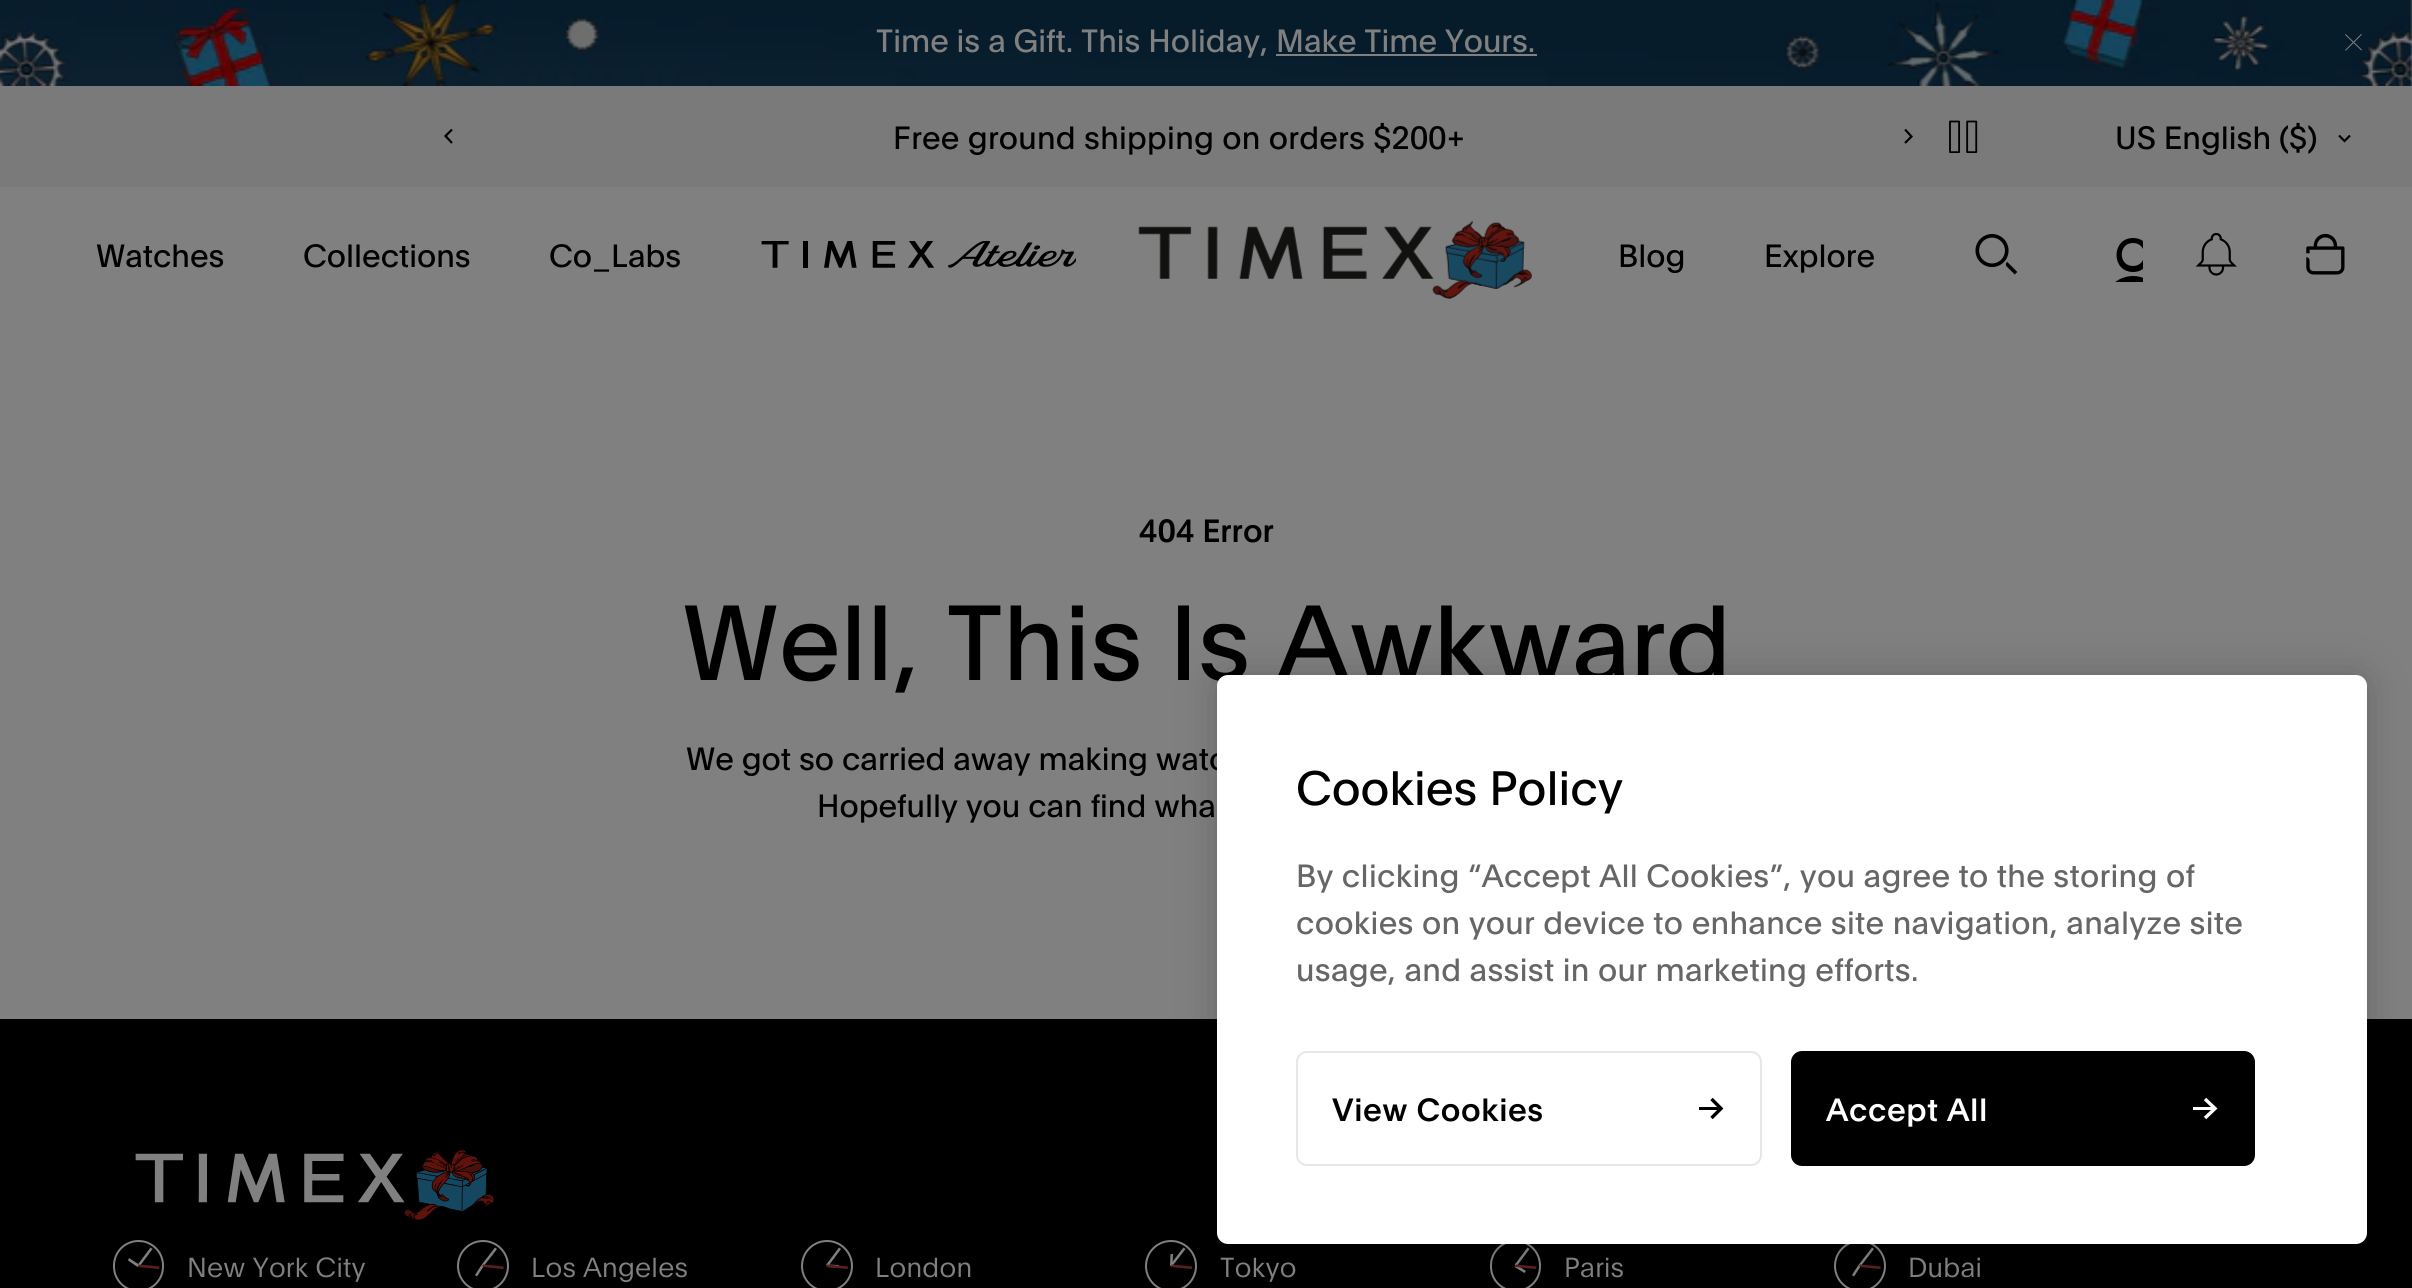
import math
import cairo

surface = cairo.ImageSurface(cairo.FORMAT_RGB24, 2412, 1288)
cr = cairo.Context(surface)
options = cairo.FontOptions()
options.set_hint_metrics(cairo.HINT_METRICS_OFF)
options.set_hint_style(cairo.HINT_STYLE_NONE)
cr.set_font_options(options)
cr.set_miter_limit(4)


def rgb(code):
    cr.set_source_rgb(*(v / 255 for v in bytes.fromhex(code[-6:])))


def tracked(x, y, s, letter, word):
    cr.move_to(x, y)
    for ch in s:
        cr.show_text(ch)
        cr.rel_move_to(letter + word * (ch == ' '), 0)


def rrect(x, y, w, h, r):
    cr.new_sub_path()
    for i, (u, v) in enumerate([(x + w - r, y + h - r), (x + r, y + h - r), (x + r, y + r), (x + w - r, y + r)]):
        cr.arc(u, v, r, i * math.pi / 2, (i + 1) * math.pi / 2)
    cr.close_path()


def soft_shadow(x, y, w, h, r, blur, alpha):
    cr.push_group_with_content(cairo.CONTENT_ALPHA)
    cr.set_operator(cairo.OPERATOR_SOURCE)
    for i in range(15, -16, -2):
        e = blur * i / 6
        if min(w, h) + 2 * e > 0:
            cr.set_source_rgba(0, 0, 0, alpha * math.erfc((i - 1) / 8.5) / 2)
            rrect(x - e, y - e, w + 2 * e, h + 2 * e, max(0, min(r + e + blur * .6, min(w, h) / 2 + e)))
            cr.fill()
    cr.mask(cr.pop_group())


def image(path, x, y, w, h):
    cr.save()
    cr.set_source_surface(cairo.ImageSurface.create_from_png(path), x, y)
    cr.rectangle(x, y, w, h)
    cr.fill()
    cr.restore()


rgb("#808080")
cr.paint()
image("img/1.png", 0, 0, 2412, 86)
rgb("#808080")
cr.rectangle(1276, 54, 261, 2)
cr.fill()
image("img/2.png", 2345, 34, 17, 17)
rgb("#7a7a7a")
cr.rectangle(0, 86, 2412, 101)
cr.fill()
cr.new_path()
cr.move_to(452, 129.5)
cr.line_to(445.5, 136)
cr.line_to(452, 143)
rgb("#000000")
cr.set_line_width(2.2)
cr.stroke()
cr.new_path()
cr.move_to(1905, 143)
cr.line_to(1911.5, 136.5)
cr.line_to(1905, 129.5)
cr.stroke()
image("img/3.png", 1949, 120, 29, 33)
cr.new_path()
cr.move_to(2339, 135.5)
cr.line_to(2344.5, 141)
cr.line_to(2350, 135.5)
cr.stroke()
image("img/4.png", 761, 241, 315, 27)
image("img/5.png", 1138, 220, 394, 79)
image("img/6.png", 1975, 234, 43, 41)
cr.save()
cr.rectangle(2087, 226, 56, 56)
cr.clip()
cr.new_path()
cr.move_to(2133, 272)
cr.curve_to(2155, 272, 2155, 238, 2133, 238)
cr.curve_to(2111, 238, 2111, 272, 2133, 272)
cr.close_path()
cr.move_to(2133, 243)
cr.curve_to(2148, 243, 2148, 266, 2133, 266)
cr.curve_to(2118, 266, 2118, 243, 2133, 243)
cr.close_path()
cr.move_to(2133, 276)
cr.curve_to(2116, 276, 2102, 291, 2102, 307)
cr.line_to(2108, 307)
cr.curve_to(2108, 274, 2158, 274, 2158, 307)
cr.line_to(2164, 307)
cr.curve_to(2164, 291, 2150, 276, 2133, 276)
cr.close_path()
cr.fill()
cr.restore()
image("img/7.png", 2195, 232, 42, 44)
image("img/8.png", 2306, 233, 39, 42)
cr.rectangle(0, 1019, 2412, 269)
cr.fill()
cr.arc(1171, 1266, 25, 0, 2 * math.pi)
rgb("#808080")
cr.set_line_width(2)
cr.stroke()
cr.new_path()
cr.move_to(1170.5, 1254)
cr.line_to(1173, 1254)
cr.line_to(1172.5, 1266)
cr.line_to(1170, 1265.5)
cr.close_path()
cr.fill()
cr.new_path()
cr.move_to(1183.5, 1247.5)
cr.line_to(1185.5, 1249)
cr.line_to(1172, 1266.5)
cr.line_to(1170, 1265)
cr.close_path()
cr.fill()
rgb("#5f1f22")
cr.new_path()
cr.move_to(1192, 1266.5)
cr.line_to(1192, 1269)
cr.line_to(1171, 1267)
cr.line_to(1171.5, 1264.5)
cr.close_path()
cr.fill()
rrect(1491, 1241, 49, 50, 24.5)
rgb("#808080")
cr.stroke()
cr.new_path()
cr.move_to(1526, 1271)
cr.line_to(1524.5, 1273)
cr.line_to(1514.5, 1267)
cr.line_to(1516, 1264.5)
cr.close_path()
cr.fill()
cr.new_path()
cr.move_to(1527.5, 1247.5)
cr.line_to(1529.5, 1249)
cr.line_to(1516.5, 1266.5)
cr.line_to(1514.5, 1265)
cr.close_path()
cr.fill()
rgb("#5f1f22")
cr.new_path()
cr.move_to(1536.5, 1266.5)
cr.line_to(1536, 1269)
cr.line_to(1515, 1267)
cr.line_to(1515.5, 1264.5)
cr.close_path()
cr.fill()
cr.arc(1860, 1266, 25, 0, 2 * math.pi)
rgb("#808080")
cr.stroke()
cr.new_path()
cr.move_to(1854, 1276.5)
cr.line_to(1852, 1275)
cr.line_to(1858.5, 1265)
cr.line_to(1860.5, 1266.5)
cr.close_path()
cr.fill()
cr.new_path()
cr.move_to(1872, 1247.5)
cr.line_to(1874, 1249)
cr.line_to(1860.5, 1266.5)
cr.line_to(1858.5, 1265)
cr.close_path()
cr.fill()
rgb("#5f1f22")
cr.new_path()
cr.move_to(1880.5, 1266.5)
cr.line_to(1880.5, 1269)
cr.line_to(1859.5, 1267)
cr.line_to(1860, 1264.5)
cr.close_path()
cr.fill()
rgb("#000000")
soft_shadow(1217, 675, 1150, 569, 11, 20, 0.2)
image("img/9.png", 135, 1149, 359, 72)
rrect(114, 1241, 49, 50, 24.5)
rgb("#808080")
cr.stroke()
cr.new_path()
cr.move_to(128, 1260.5)
cr.line_to(129, 1258)
cr.line_to(139, 1264.5)
cr.line_to(137.5, 1267)
cr.close_path()
cr.fill()
cr.new_path()
cr.move_to(150.5, 1247.5)
cr.line_to(152.5, 1249)
cr.line_to(139.5, 1266.5)
cr.line_to(137.5, 1265)
cr.close_path()
cr.fill()
rgb("#5f1f22")
cr.new_path()
cr.move_to(159.5, 1266.5)
cr.line_to(159, 1269)
cr.line_to(138, 1267)
cr.line_to(138.5, 1264.5)
cr.close_path()
cr.fill()
cr.arc(483, 1266, 25, 0, 2 * math.pi)
rgb("#808080")
cr.stroke()
cr.new_path()
cr.move_to(477, 1276.5)
cr.line_to(475, 1275)
cr.line_to(481.5, 1265)
cr.line_to(483.5, 1266.5)
cr.close_path()
cr.fill()
cr.new_path()
cr.move_to(495, 1247.5)
cr.line_to(497, 1249)
cr.line_to(483.5, 1266.5)
cr.line_to(481.5, 1265)
cr.close_path()
cr.fill()
rgb("#5f1f22")
cr.new_path()
cr.move_to(503.5, 1266.5)
cr.line_to(503.5, 1269)
cr.line_to(482.5, 1267)
cr.line_to(483, 1264.5)
cr.close_path()
cr.fill()
cr.arc(827, 1266, 25, 0, 2 * math.pi)
rgb("#808080")
cr.stroke()
cr.new_path()
cr.move_to(839, 1265)
cr.line_to(838.5, 1267.5)
cr.line_to(827, 1267)
cr.line_to(827, 1264.5)
cr.close_path()
cr.fill()
cr.new_path()
cr.move_to(839, 1247.5)
cr.line_to(841, 1249)
cr.line_to(828, 1266.5)
cr.line_to(826, 1265)
cr.close_path()
cr.fill()
rgb("#5f1f22")
cr.new_path()
cr.move_to(848, 1266.5)
cr.line_to(847.5, 1269)
cr.line_to(826.5, 1267)
cr.line_to(827, 1264.5)
cr.close_path()
cr.fill()
cr.select_font_face("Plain")
cr.set_font_size(31.5)
rgb("#808080")
cr.move_to(876, 52)
cr.show_text("Time is a Gift. This Holiday, Make Time Yours.")
rgb("#000000")
tracked(893, 149, "Free ground shipping on orders $200+", 0.25, 0)
for x, y, s in [
    (2115, 149, "US English ($)"),
    (96, 267, "Watches"),
    (303, 267, "Collections"),
    (549, 267, "Co_Labs"),
    (1618, 267, "Blog"),
    (1764, 267, "Explore"),
]:
    cr.move_to(x, y)
    cr.show_text(s)
cr.select_font_face("Plain Medium")
cr.move_to(1139, 542)
cr.show_text("404 Error")
cr.select_font_face("Plain")
cr.set_font_size(104.25)
cr.move_to(682, 680)
cr.show_text("Well, This Is Awkward")
cr.set_font_size(31.5)
cr.move_to(686, 770)
cr.show_text("We got so carried away making watc")
cr.move_to(817, 817)
cr.show_text("Hopefully you can find wha")
rgb("#ffffff")
rrect(1217, 675, 1150, 569, 11)
cr.fill()
cr.set_font_size(47.25)
rgb("#000000")
cr.move_to(1296, 805)
cr.show_text("Cookies Policy")
cr.set_font_size(31.5)
rgb("#666666")
for x, y, s in [
    (1296, 887, "By clicking “Accept All Cookies”, you agree to the storing of"),
    (1296, 934, "cookies on your device to enhance site navigation, analyze site"),
    (1296, 981, "usage, and assist in our marketing efforts."),
]:
    tracked(x, y, s, 0.32, 0)
rrect(1297, 1052, 464, 113, 10)
rgb("#e7e7e7")
cr.stroke()
cr.select_font_face("Plain Medium")
rgb("#000000")
tracked(1332, 1121, "View Cookies", 0.6, 0)
cr.new_path()
cr.move_to(1711.5, 1099)
cr.line_to(1721, 1108.5)
cr.line_to(1711.5, 1118)
cr.set_line_width(3.4)
cr.stroke()
cr.rectangle(1699, 1107, 22, 3)
cr.fill()
rrect(1792, 1052, 462, 113, 10)
cr.fill_preserve()
cr.set_line_width(2)
cr.stroke()
rgb("#ffffff")
tracked(1826, 1121, "Accept All", 0.6, 0)
cr.new_path()
cr.move_to(2205, 1099)
cr.line_to(2215, 1108.5)
cr.line_to(2205, 1118)
cr.set_line_width(3.4)
cr.stroke()
cr.rectangle(2193, 1107, 21, 3)
cr.fill()
cr.select_font_face("Plain Light")
cr.set_font_size(27)
rgb("#808080")
for x, y, s in [
    (187, 1277, "New York City"),
    (531, 1277, "Los Angeles"),
    (875, 1277, "London"),
    (1220, 1277, "Tokyo"),
    (1564, 1277, "Paris"),
    (1908, 1277, "Dubai"),
]:
    tracked(x, y, s, 0.25, 0)
surface.write_to_png("page.png")
